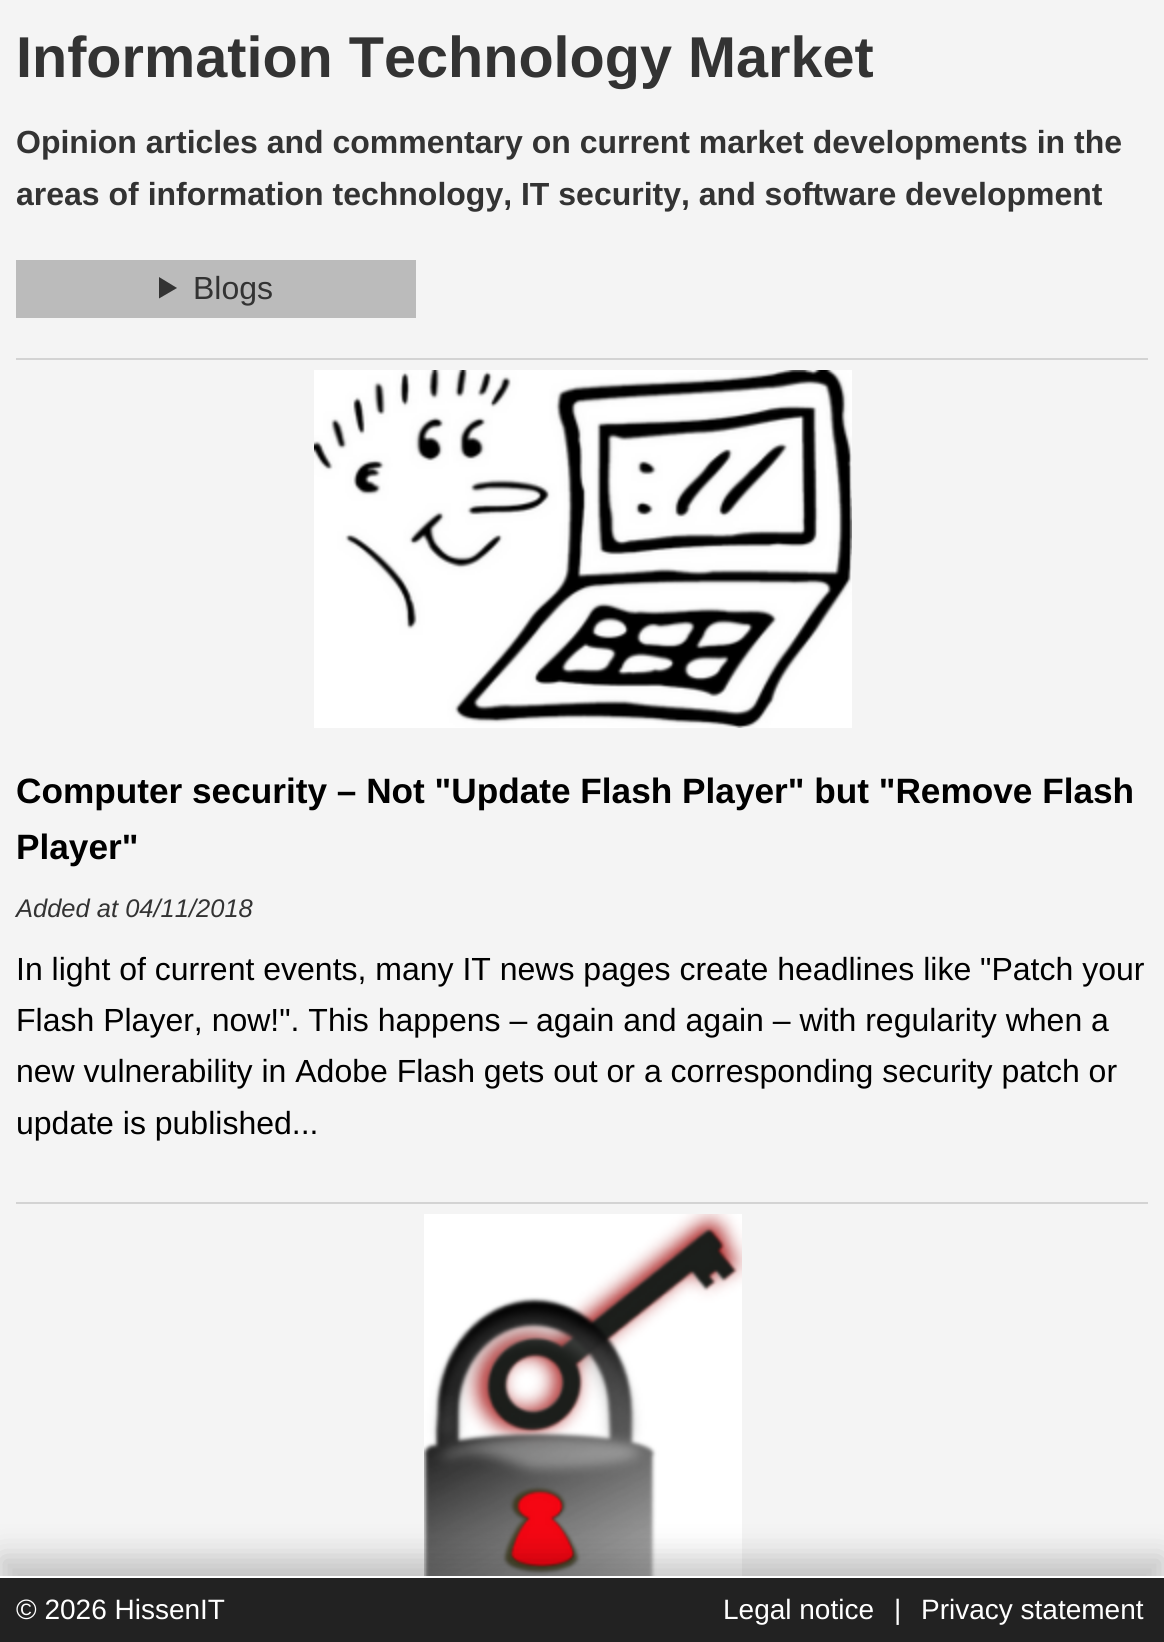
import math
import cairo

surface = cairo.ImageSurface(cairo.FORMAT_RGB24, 1164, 1642)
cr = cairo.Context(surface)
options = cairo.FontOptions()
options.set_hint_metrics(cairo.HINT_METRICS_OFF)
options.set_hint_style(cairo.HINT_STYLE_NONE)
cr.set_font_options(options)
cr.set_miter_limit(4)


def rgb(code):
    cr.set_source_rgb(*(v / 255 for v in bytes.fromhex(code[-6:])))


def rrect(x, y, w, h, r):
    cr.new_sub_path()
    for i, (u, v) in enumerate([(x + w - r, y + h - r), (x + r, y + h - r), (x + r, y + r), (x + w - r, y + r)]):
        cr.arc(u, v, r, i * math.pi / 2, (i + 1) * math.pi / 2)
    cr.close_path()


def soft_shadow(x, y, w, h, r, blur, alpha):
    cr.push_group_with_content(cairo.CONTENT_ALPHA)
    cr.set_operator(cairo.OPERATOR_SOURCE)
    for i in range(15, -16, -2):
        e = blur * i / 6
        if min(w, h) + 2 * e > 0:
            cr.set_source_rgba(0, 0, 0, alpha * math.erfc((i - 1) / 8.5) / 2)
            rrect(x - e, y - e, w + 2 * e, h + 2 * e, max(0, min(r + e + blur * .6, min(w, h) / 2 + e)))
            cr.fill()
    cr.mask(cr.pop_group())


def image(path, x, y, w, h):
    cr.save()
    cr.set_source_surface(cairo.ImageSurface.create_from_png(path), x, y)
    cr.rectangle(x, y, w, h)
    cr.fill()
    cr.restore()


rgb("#f4f4f4")
cr.paint()
rgb("#bbbbbb")
cr.rectangle(16, 260, 400, 58)
cr.fill()
rgb("#333333")
cr.new_path()
cr.move_to(159, 277)
cr.line_to(177, 288)
cr.line_to(159, 298.5)
cr.close_path()
cr.fill()
rgb("#d3d3d3")
cr.rectangle(16, 358, 1132, 2)
cr.fill()
image("img/1.png", 314, 370, 538, 358)
cr.rectangle(16, 1202, 1132, 2)
cr.fill()
image("img/2.png", 424, 1214, 318, 362)
rgb("#000000")
soft_shadow(0, 1556, 1164, 66, 0, 15, 0.2)
rgb("#222222")
cr.rectangle(0, 1578, 1164, 64)
cr.fill()
rgb("#ffffff")
cr.rectangle(0, 1576, 1164, 2)
cr.fill()
cr.select_font_face("Liberation Sans", cairo.FONT_SLANT_NORMAL, cairo.FONT_WEIGHT_BOLD)
cr.set_font_size(57.6)
rgb("#333333")
cr.move_to(16, 77)
cr.show_text("Information Technology Market")
cr.set_font_size(32)
cr.move_to(16, 153)
cr.show_text("Opinion articles and commentary on current market developments in the")
cr.move_to(16, 205)
cr.show_text("areas of information technology, IT security, and software development")
cr.select_font_face("Liberation Sans")
cr.move_to(193, 299)
cr.show_text("Blogs")
cr.select_font_face("Liberation Sans", cairo.FONT_SLANT_NORMAL, cairo.FONT_WEIGHT_BOLD)
cr.set_font_size(35.2)
rgb("#000000")
cr.move_to(16, 803)
cr.show_text("Computer security – Not \"Update Flash Player\" but \"Remove Flash")
cr.move_to(16, 859)
cr.show_text("Player\"")
cr.select_font_face("Liberation Sans", cairo.FONT_SLANT_ITALIC)
cr.set_font_size(25.5)
rgb("#333333")
cr.move_to(16, 917)
cr.show_text("Added at 04/11/2018")
cr.select_font_face("Liberation Sans")
cr.set_font_size(32)
rgb("#000000")
for x, y, s in [
    (16, 980, "In light of current events, many IT news pages create headlines like \"Patch your"),
    (16, 1031, "Flash Player, now!\". This happens – again and again – with regularity when a"),
    (16, 1082, "new vulnerability in Adobe Flash gets out or a corresponding security patch or"),
    (16, 1134, "update is published..."),
]:
    cr.move_to(x, y)
    cr.show_text(s)
cr.set_font_size(28)
rgb("#ffffff")
for x, y, s in [
    (16, 1619, "© 2026 HissenIT"),
    (723, 1619, "Legal notice"),
    (894, 1619, "|"),
    (921, 1619, "Privacy statement"),
]:
    cr.move_to(x, y)
    cr.show_text(s)
surface.write_to_png("page.png")
